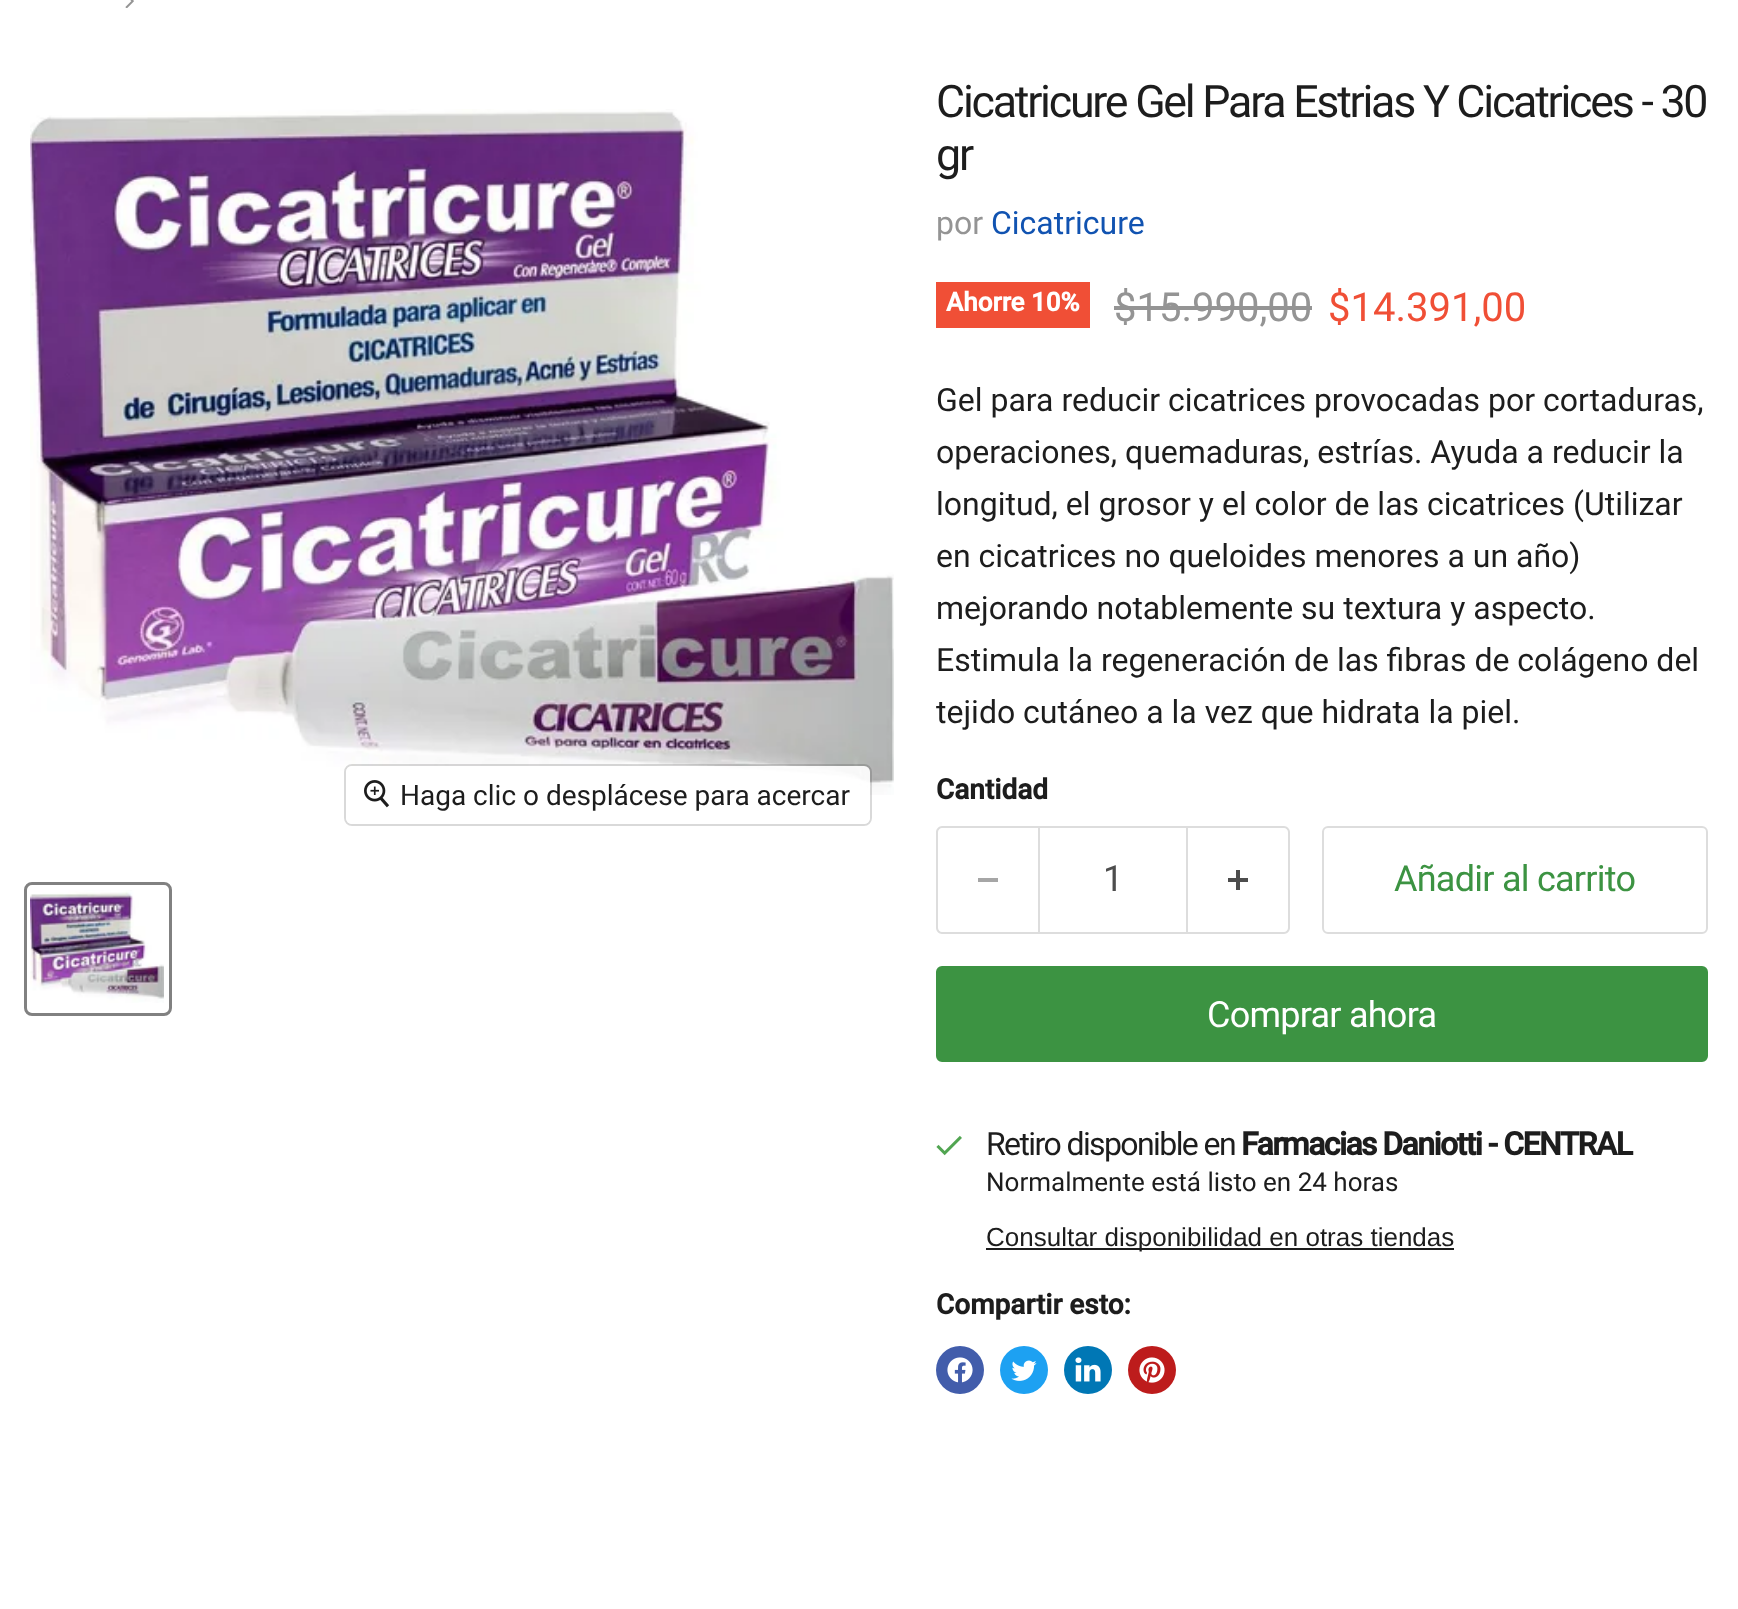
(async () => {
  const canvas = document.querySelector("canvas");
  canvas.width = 1738;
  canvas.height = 1609;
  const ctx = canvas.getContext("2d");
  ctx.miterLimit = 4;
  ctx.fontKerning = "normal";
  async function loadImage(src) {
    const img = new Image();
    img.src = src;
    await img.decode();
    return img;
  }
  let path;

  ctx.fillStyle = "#ffffff";
  ctx.fillRect(0, 0, 1738, 1609);
  ctx.drawImage(await loadImage("img/1.png"), 125, 0, 9, 8);
  ctx.drawImage(await loadImage("img/2.png"), 30, 109, 864, 686);
  ctx.beginPath();
  ctx.roundRect(345, 765, 526, 60, 7);
  ctx.strokeStyle = "rgba(0, 0, 0, 0.15)";
  ctx.lineWidth = 2;
  ctx.stroke();
  ctx.fillStyle = "rgba(255, 255, 255, 0.9)";
  ctx.beginPath();
  ctx.roundRect(346, 766, 524, 58, 6);
  ctx.fill();
  ctx.drawImage(await loadImage("img/3.png"), 364, 780, 26, 28);
  ctx.beginPath();
  ctx.roundRect(25.5, 883.5, 145, 131, 6.5);
  ctx.strokeStyle = "#818181";
  ctx.lineWidth = 3;
  ctx.stroke();
  ctx.drawImage(await loadImage("img/4.png"), 30, 890, 134, 113);
  ctx.fillStyle = "#f04f36";
  ctx.fillRect(936, 282, 154, 46);
  ctx.fillStyle = "#949494";
  ctx.fillRect(1114, 306, 198, 4);
  ctx.fillStyle = "#dddddd";
  path = new Path2D("M942 826H1038V934H942C939 934 936 931 936 928V832C936 829 939 826 942 826ZM942 828H1038V932H942C940 932 938 930 938 928V832C938 830 940 828 942 828Z");
  ctx.fill(path, "evenodd");
  ctx.fillStyle = "#a6a6a6";
  ctx.fillRect(978, 878, 20, 4);
  ctx.strokeStyle = "#dddddd";
  ctx.lineWidth = 2;
  ctx.strokeRect(1039, 827, 148, 106);
  ctx.fillStyle = "#dddddd";
  path = new Path2D("M1188 826H1284C1287 826 1290 829 1290 832V928C1290 931 1287 934 1284 934H1188ZM1188 828H1284C1286 828 1288 830 1288 832V928C1288 930 1286 932 1284 932H1188Z");
  ctx.fill(path, "evenodd");
  ctx.drawImage(await loadImage("img/5.png"), 1228, 870, 20, 20);
  ctx.beginPath();
  ctx.roundRect(1323, 827, 384, 106, 5);
  ctx.stroke();
  ctx.fillStyle = "#3c9342";
  ctx.beginPath();
  ctx.roundRect(937, 967, 770, 94, 5);
  ctx.fill();
  ctx.strokeStyle = "#3c9342";
  ctx.stroke();
  ctx.drawImage(await loadImage("img/6.png"), 936, 1135, 26, 21);
  ctx.fillStyle = "#1d1d1d";
  ctx.fillRect(986, 1248, 468, 2);
  ctx.fillStyle = "#425dab";
  ctx.beginPath();
  ctx.arc(960, 1370, 24, 0, Math.PI * 2);
  ctx.fill();
  ctx.drawImage(await loadImage("img/7.png"), 947, 1357, 26, 26);
  ctx.fillStyle = "#1da1f2";
  ctx.beginPath();
  ctx.arc(1024, 1370, 24, 0, Math.PI * 2);
  ctx.fill();
  ctx.drawImage(await loadImage("img/8.png"), 1011, 1360, 26, 21);
  ctx.fillStyle = "#0077b5";
  ctx.beginPath();
  ctx.arc(1088, 1370, 24, 0, Math.PI * 2);
  ctx.fill();
  ctx.drawImage(await loadImage("img/9.png"), 1075, 1357, 26, 25);
  ctx.fillStyle = "#bd1c1c";
  ctx.beginPath();
  ctx.arc(1152, 1370, 24, 0, Math.PI * 2);
  ctx.fill();
  ctx.drawImage(await loadImage("img/10.png"), 1139, 1357, 26, 26);
  ctx.font = "28px Roboto";
  ctx.fillStyle = "#1d1d1d";
  ctx.fillText("Haga clic o desplácese para acercar", 400, 805);
  ctx.letterSpacing = "-2.25px";
  ctx.font = "44.75px Roboto";
  ctx.fillText("Cicatricure Gel Para Estrias Y Cicatrices - 30", 936, 117);
  ctx.fillText("gr", 936, 170);
  ctx.letterSpacing = "0px";
  ctx.font = "32px Roboto";
  ctx.fillStyle = "#949494";
  ctx.fillText("por", 936, 234);
  ctx.fillStyle = "#1153b1";
  ctx.fillText("Cicatricure", 991, 234);
  ctx.font = "bold 26px Roboto";
  ctx.fillStyle = "#ffffff";
  ctx.fillText("Ahorre 10%", 946, 311);
  ctx.font = "40px Roboto";
  ctx.fillStyle = "#949494";
  ctx.fillText("$15.990,00", 1114, 321);
  ctx.fillStyle = "#f04f36";
  ctx.fillText("$14.391,00", 1328, 321);
  ctx.font = "32px Roboto";
  ctx.fillStyle = "#1d1d1d";
  for (const [text, x, y] of [
    ["Gel para reducir cicatrices provocadas por cortaduras,", 936, 411],
    ["operaciones, quemaduras, estrías. Ayuda a reducir la", 936, 463],
    ["longitud, el grosor y el color de las cicatrices (Utilizar", 936, 515],
    ["en cicatrices no queloides menores a un año)", 936, 567],
    ["mejorando notablemente su textura y aspecto.", 936, 619],
    ["Estimula la regeneración de las fibras de colágeno del", 936, 671],
    ["tejido cutáneo a la vez que hidrata la piel.", 936, 723],
  ]) {
    ctx.fillText(text, x, y);
  }
  ctx.font = "bold 28px Roboto";
  ctx.fillText("Cantidad", 936, 799);
  ctx.font = "36px Roboto";
  ctx.fillStyle = "#4d4d4d";
  ctx.fillText("1", 1103, 891);
  ctx.letterSpacing = "-0.75px";
  ctx.fillStyle = "#3c9342";
  ctx.fillText("Añadir al carrito", 1394, 891);
  ctx.fillStyle = "#ffffff";
  ctx.fillText("Comprar ahora", 1207, 1027);
  ctx.letterSpacing = "-1.6px";
  ctx.font = "32px Roboto";
  ctx.fillStyle = "#1d1d1d";
  ctx.fillText("Retiro disponible en", 986, 1155);
  ctx.font = "bold 32px Roboto";
  ctx.fillText("Farmacias Daniotti - CENTRAL", 1241, 1155);
  ctx.letterSpacing = "0px";
  ctx.font = "26px Roboto";
  ctx.fillText("Normalmente está listo en 24 horas", 986, 1191);
  ctx.font = "26px Liberation Sans";
  ctx.fillText("Consultar disponibilidad en otras tiendas", 986, 1246);
  ctx.font = "bold 28px Roboto";
  ctx.fillText("Compartir esto:", 936, 1314);
})();
